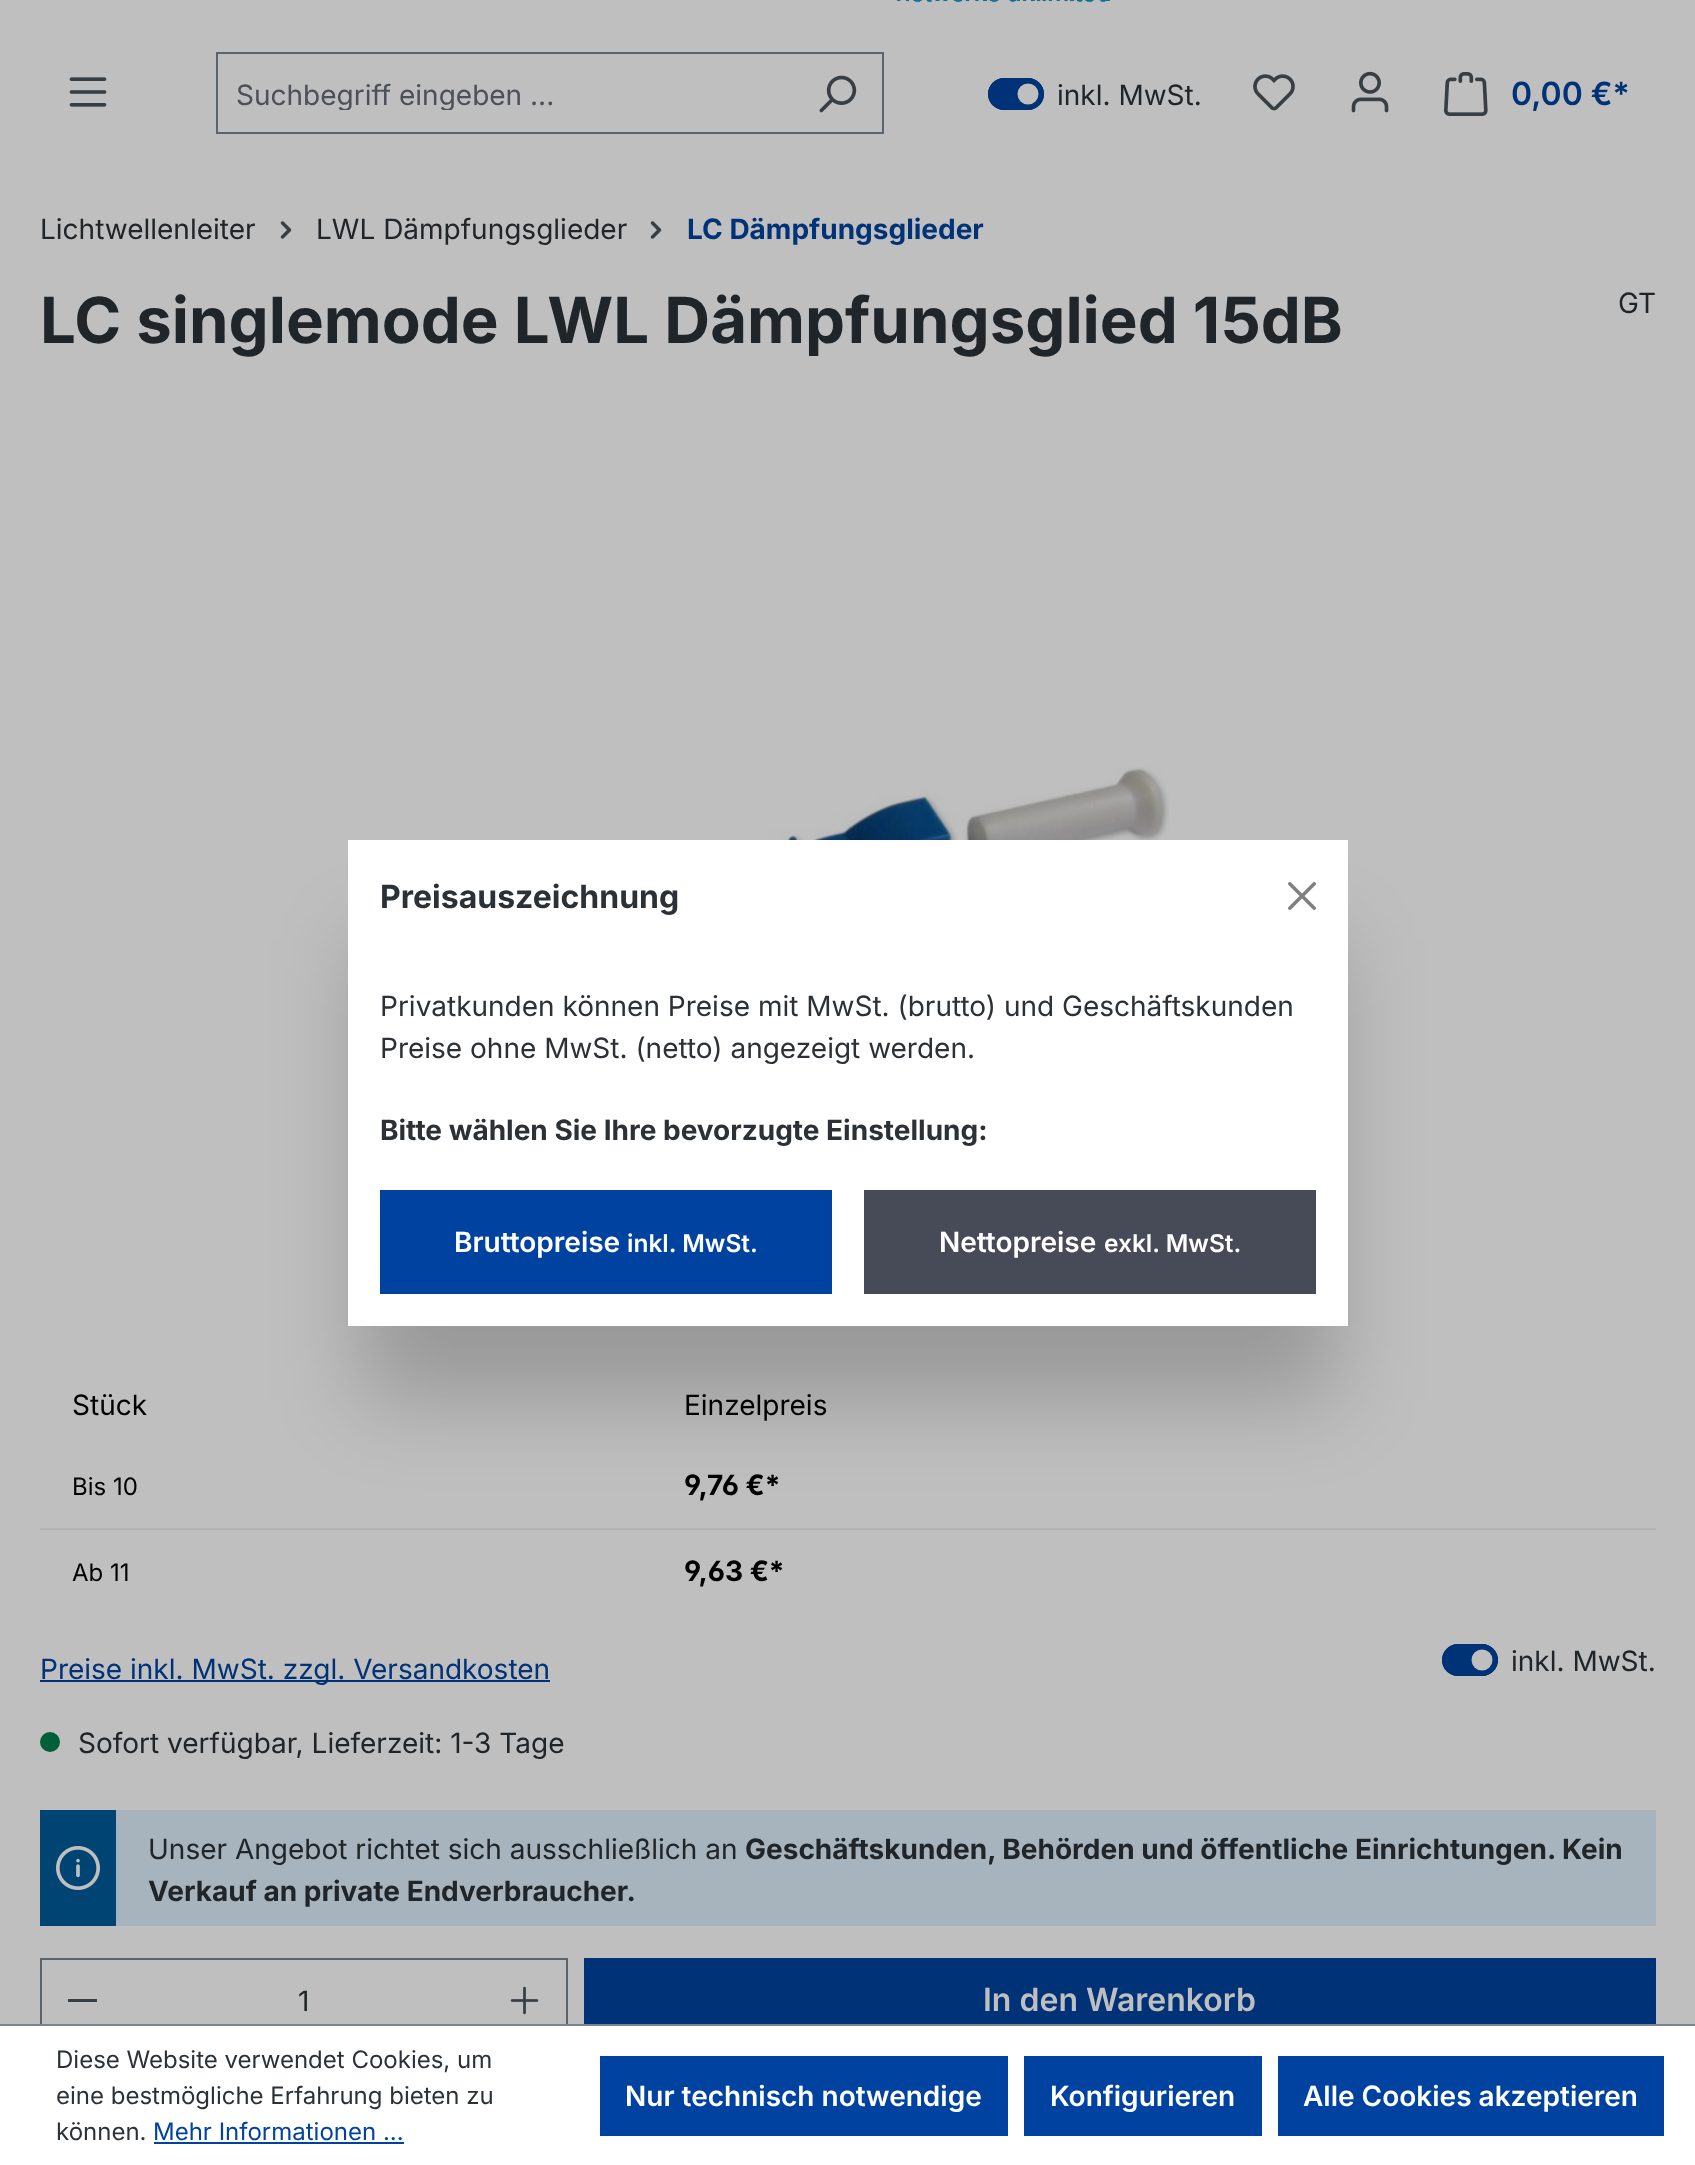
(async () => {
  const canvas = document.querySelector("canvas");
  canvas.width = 1695;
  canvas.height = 2165;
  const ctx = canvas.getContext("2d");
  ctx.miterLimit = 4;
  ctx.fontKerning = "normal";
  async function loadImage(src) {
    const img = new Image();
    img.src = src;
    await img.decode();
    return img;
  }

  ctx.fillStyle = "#bfbfbf";
  ctx.fillRect(0, 0, 1695, 2165);
  ctx.drawImage(await loadImage("img/1.png"), 896, 0, 215, 3);
  ctx.drawImage(await loadImage("img/2.png"), 69, 77, 38, 30);
  for (const [x, y, w, h, color] of [
    [216, 52, 668, 2, "#5b636c"],
    [216, 132, 576, 2, "#5b636c"],
    [216, 52, 2, 82, "#5b636c"],
    [882, 52, 2, 82, "#5b636c"],
    [790, 132, 94, 2, "#5b636c"],
  ]) {
    ctx.fillStyle = color;
    ctx.fillRect(x, y, w, h);
  }
  ctx.drawImage(await loadImage("img/3.png"), 819, 75, 38, 38);
  ctx.fillStyle = "#003278";
  ctx.beginPath();
  ctx.roundRect(988, 78, 56, 32, 16);
  ctx.fill();
  ctx.fillStyle = "#bfbfbf";
  ctx.beginPath();
  ctx.arc(1028, 94, 10.5, 0, Math.PI * 2);
  ctx.fill();
  ctx.beginPath();
  ctx.roundRect(989, 79, 54, 30, 15);
  ctx.strokeStyle = "#003278";
  ctx.lineWidth = 2;
  ctx.stroke();
  ctx.drawImage(await loadImage("img/4.png"), 1253, 74, 42, 37);
  ctx.drawImage(await loadImage("img/5.png"), 1351, 71, 38, 42);
  ctx.drawImage(await loadImage("img/6.png"), 1444, 72, 44, 44);
  ctx.drawImage(await loadImage("img/7.png"), 280, 221, 12, 18);
  ctx.drawImage(await loadImage("img/7.png"), 650, 221, 12, 18);
  ctx.drawImage(await loadImage("img/8.png"), 534, 767, 635, 73);
  ctx.fillStyle = "#b3b3b3";
  ctx.fillRect(40, 1528, 1616, 2);
  ctx.fillStyle = "#003278";
  ctx.fillRect(40, 1680, 510, 2);
  ctx.beginPath();
  ctx.roundRect(1442, 1644, 56, 32, 16);
  ctx.fill();
  ctx.fillStyle = "#bfbfbf";
  ctx.beginPath();
  ctx.arc(1482, 1660, 10.5, 0, Math.PI * 2);
  ctx.fill();
  ctx.beginPath();
  ctx.roundRect(1443, 1645, 54, 30, 15);
  ctx.stroke();
  ctx.fillStyle = "#005f3b";
  ctx.beginPath();
  ctx.arc(50, 1742, 10, 0, Math.PI * 2);
  ctx.fill();
  ctx.fillStyle = "#004473";
  ctx.fillRect(40, 1810, 76, 116);
  ctx.drawImage(await loadImage("img/9.png"), 56, 1846, 44, 44);
  for (const [x, y, w, h, color] of [
    [116, 1810, 1540, 116, "#a7b4bd"],
    [40, 1958, 528, 2, "#5b636c"],
    [40, 1958, 2, 66, "#5b636c"],
    [68, 1999, 29, 3, "#383f44"],
    [566, 1958, 2, 66, "#5b636c"],
  ]) {
    ctx.fillStyle = color;
    ctx.fillRect(x, y, w, h);
  }
  ctx.drawImage(await loadImage("img/10.png"), 510, 1986, 29, 29);
  ctx.fillStyle = "#003278";
  ctx.fillRect(584, 1958, 1072, 66);
  ctx.fillStyle = "rgba(0, 0, 0, 0.2)";
  ctx.filter = "blur(43px)";
  ctx.beginPath();
  ctx.rect(360, 938, 976, 462);
  ctx.fill();
  ctx.filter = "none";
  ctx.fillStyle = "#ffffff";
  ctx.fillRect(348, 840, 1000, 486);
  ctx.drawImage(await loadImage("img/11.png"), 1288, 882, 28, 28);
  for (const [x, y, w, h, color] of [
    [380, 1190, 452, 104, "#0042a0"],
    [864, 1190, 452, 104, "#474a57"],
    [0, 2026, 1695, 139, "#ffffff"],
    [0, 2024, 1695, 2, "#798490"],
    [154, 2142, 250, 2, "#0042a0"],
    [600, 2056, 408, 80, "#0042a0"],
    [1024, 2056, 238, 80, "#0042a0"],
    [1278, 2056, 386, 80, "#0042a0"],
  ]) {
    ctx.fillStyle = color;
    ctx.fillRect(x, y, w, h);
  }
  ctx.save();
  ctx.beginPath();
  ctx.rect(236, 76, 538, 34);
  ctx.clip();
  ctx.font = "28px Inter";
  ctx.fillStyle = "#4d4f59";
  ctx.fillText("Suchbegriff eingeben ...", 236, 105);
  ctx.restore();
  ctx.font = "28px Inter";
  ctx.fillStyle = "#202529";
  ctx.fillText("inkl. MwSt.", 1057, 105);
  ctx.font = "600 32px Inter";
  ctx.fillStyle = "#003278";
  ctx.fillText("0,00 €*", 1511, 105);
  ctx.font = "28px Inter";
  ctx.fillStyle = "#202529";
  ctx.fillText("Lichtwellenleiter", 40, 239);
  ctx.fillText("LWL Dämpfungsglieder", 316, 239);
  ctx.font = "bold 28px Inter";
  ctx.fillStyle = "#003278";
  ctx.fillText("LC Dämpfungsglieder", 687, 239);
  ctx.font = "bold 63.55px Inter";
  ctx.fillStyle = "#202529";
  ctx.fillText("LC singlemode LWL Dämpfungsglied 15dB", 40, 343);
  ctx.font = "28px Inter";
  ctx.fillText("GT", 1618, 313);
  ctx.fillStyle = "#000000";
  ctx.fillText("Stück", 72, 1415);
  ctx.fillText("Einzelpreis", 684, 1415);
  ctx.font = "24px Inter";
  ctx.fillText("Bis 10", 72, 1495);
  ctx.font = "bold 28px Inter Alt";
  ctx.fillText("9,76 €*", 684, 1495);
  ctx.font = "24px Inter";
  ctx.fillText("Ab 11", 72, 1581);
  ctx.font = "bold 28px Inter Alt";
  ctx.fillText("9,63 €*", 684, 1581);
  ctx.font = "28px Inter";
  ctx.fillStyle = "#003278";
  ctx.fillText("Preise inkl. MwSt. zzgl. Versandkosten", 40, 1679);
  ctx.fillStyle = "#202529";
  for (const [text, x, y] of [
    ["inkl. MwSt.", 1511, 1671],
    ["Sofort verfügbar, Lieferzeit: 1-3 Tage", 78, 1753],
    ["Unser Angebot richtet sich ausschließlich an", 148, 1859],
  ]) {
    ctx.fillText(text, x, y);
  }
  ctx.font = "bold 28px Inter";
  ctx.fillText("Geschäftskunden, Behörden und öffentliche Einrichtungen. Kein", 745, 1859);
  ctx.fillText("Verkauf an private Endverbraucher.", 148, 1901);
  ctx.font = "28px Inter";
  ctx.fillText("1", 298, 2011);
  ctx.font = "600 32px Inter";
  ctx.fillStyle = "#bfbfbf";
  ctx.fillText("In den Warenkorb", 983, 2011);
  ctx.font = "bold 32px Inter";
  ctx.fillStyle = "#2b3136";
  ctx.fillText("Preisauszeichnung", 380, 908);
  ctx.font = "28px Inter";
  ctx.fillText("Privatkunden können Preise mit MwSt. (brutto) und Geschäftskunden", 380, 1016);
  ctx.fillText("Preise ohne MwSt. (netto) angezeigt werden.", 380, 1058);
  ctx.font = "bold 28px Inter";
  ctx.fillText("Bitte wählen Sie Ihre bevorzugte Einstellung:", 380, 1140);
  ctx.font = "600 28px Inter";
  ctx.fillStyle = "#ffffff";
  ctx.fillText("Bruttopreise", 454, 1252);
  ctx.font = "600 24.5px Inter";
  ctx.fillText("inkl. MwSt.", 627, 1252);
  ctx.font = "600 28px Inter";
  ctx.fillText("Nettopreise", 939, 1252);
  ctx.font = "600 24.5px Inter";
  ctx.fillText("exkl. MwSt.", 1104, 1252);
  ctx.font = "24px Inter";
  ctx.fillStyle = "#2b3136";
  for (const [text, x, y] of [
    ["Diese Website verwendet Cookies, um", 56, 2068],
    ["eine bestmögliche Erfahrung bieten zu", 56, 2104],
    ["können.", 56, 2140],
  ]) {
    ctx.fillText(text, x, y);
  }
  ctx.fillStyle = "#0042a0";
  ctx.fillText("Mehr Informationen ...", 153, 2140);
  ctx.font = "600 28px Inter";
  ctx.fillStyle = "#ffffff";
  for (const [text, x, y] of [
    ["Nur technisch notwendige", 625, 2106],
    ["Konfigurieren", 1050, 2106],
    ["Alle Cookies akzeptieren", 1303, 2106],
  ]) {
    ctx.fillText(text, x, y);
  }
})();
